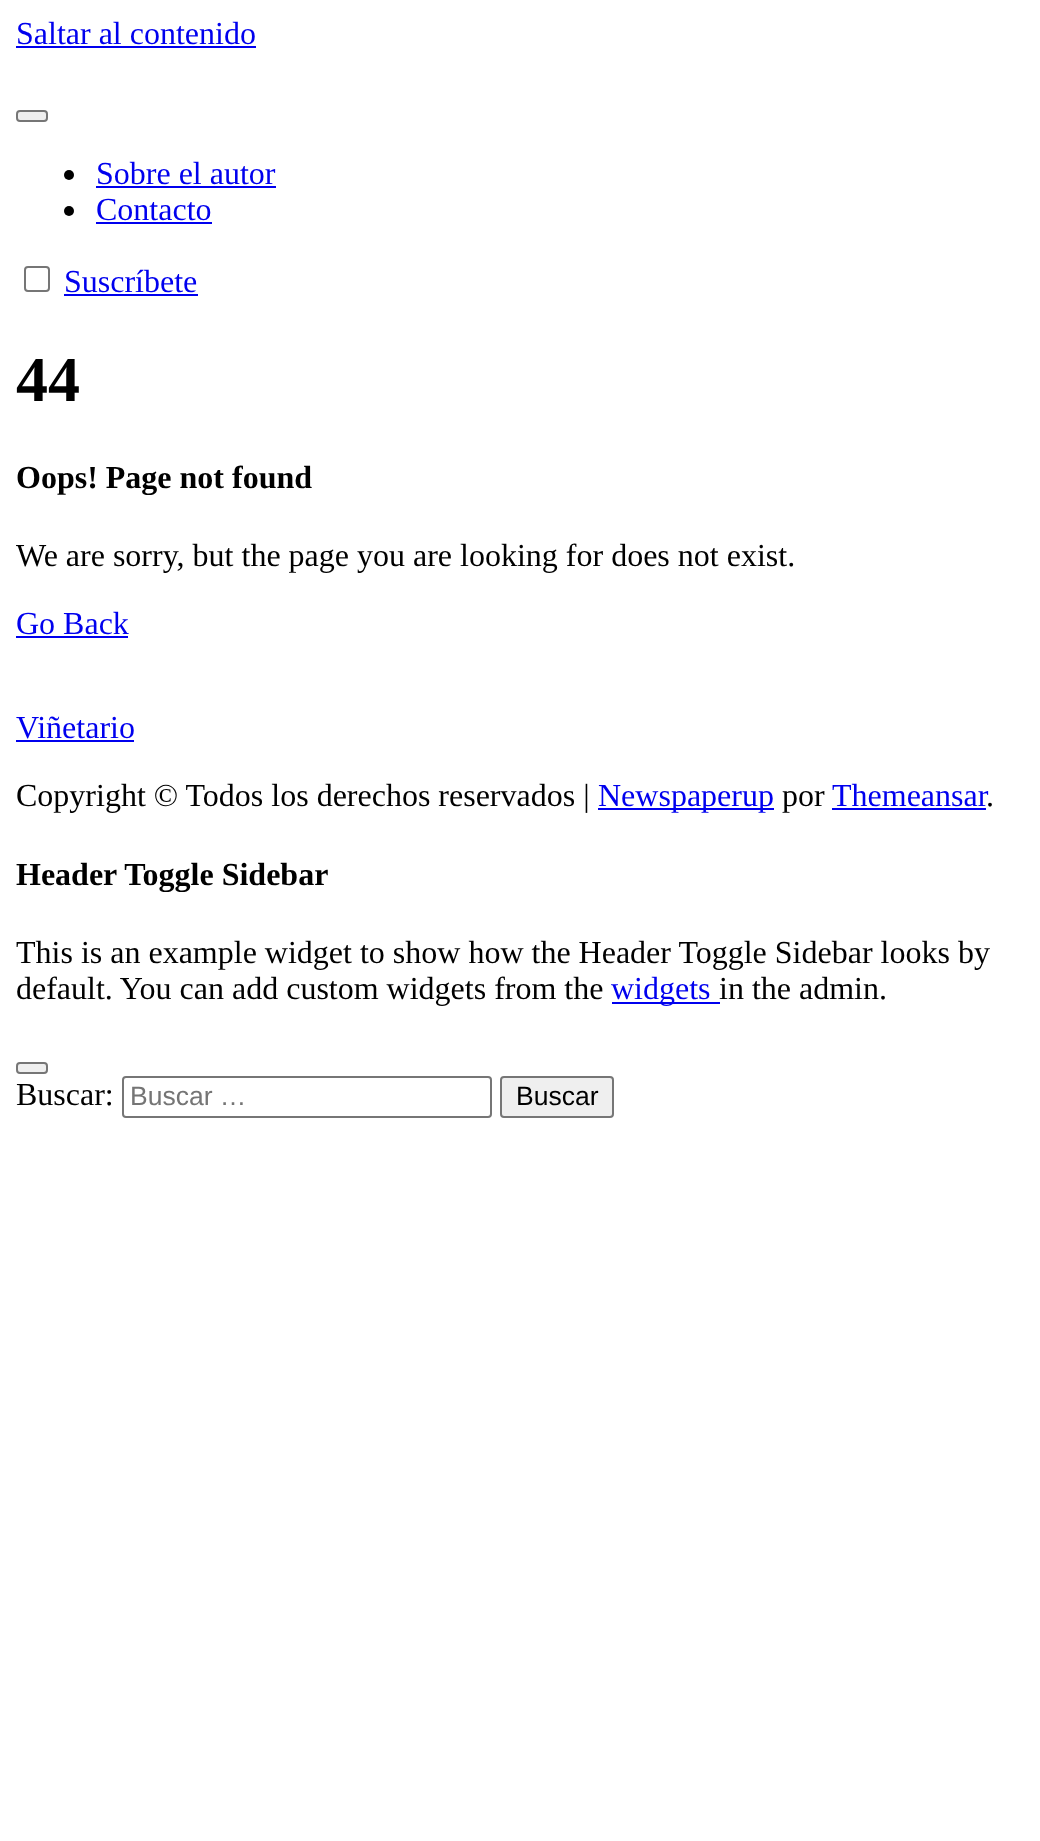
(async () => {
  const canvas = document.querySelector("canvas");
  canvas.width = 1040;
  canvas.height = 1841;
  const ctx = canvas.getContext("2d");
  ctx.miterLimit = 4;
  ctx.fontKerning = "normal";

  ctx.fillStyle = "#ffffff";
  ctx.fillRect(0, 0, 1040, 1841);
  ctx.fillStyle = "#0000ee";
  ctx.fillRect(16, 46, 240, 2);
  ctx.fillStyle = "#efefef";
  ctx.beginPath();
  ctx.roundRect(17, 111, 30, 10, 3);
  ctx.fill();
  ctx.strokeStyle = "#767676";
  ctx.lineWidth = 2;
  ctx.stroke();
  ctx.fillStyle = "#000000";
  ctx.beginPath();
  ctx.arc(69, 175, 5, 0, Math.PI * 2);
  ctx.fill();
  ctx.fillStyle = "#0000ee";
  ctx.fillRect(96, 186, 180, 2);
  ctx.fillStyle = "#000000";
  ctx.beginPath();
  ctx.arc(69, 211, 5, 0, Math.PI * 2);
  ctx.fill();
  ctx.fillStyle = "#0000ee";
  ctx.fillRect(96, 222, 116, 2);
  ctx.beginPath();
  ctx.roundRect(25, 267, 24, 24, 3);
  ctx.stroke();
  for (const [x, y, w, h, color] of [
    [64, 294, 134, 2, "#0000ee"],
    [16, 636, 112, 2, "#0000ee"],
    [16, 740, 118, 2, "#0000ee"],
    [598, 808, 176, 2, "#0000ee"],
    [832, 808, 154, 2, "#0000ee"],
    [612, 1002, 108, 2, "#0000ee"],
  ]) {
    ctx.fillStyle = color;
    ctx.fillRect(x, y, w, h);
  }
  ctx.fillStyle = "#efefef";
  ctx.beginPath();
  ctx.roundRect(17, 1063, 30, 10, 3);
  ctx.fill();
  ctx.stroke();
  ctx.beginPath();
  ctx.roundRect(123, 1077, 368, 40, 3);
  ctx.stroke();
  ctx.beginPath();
  ctx.roundRect(501, 1077, 112, 40, 3);
  ctx.fill();
  ctx.stroke();
  ctx.font = "32px Liberation Serif";
  ctx.fillStyle = "#0000ee";
  for (const [text, x, y] of [
    ["Saltar al contenido", 16, 44],
    ["Sobre el autor", 96, 184],
    ["Contacto", 96, 220],
    ["Suscríbete", 64, 292],
  ]) {
    ctx.fillText(text, x, y);
  }
  ctx.font = "bold 64px Liberation Serif";
  ctx.fillStyle = "#000000";
  ctx.fillText("44", 16, 401);
  ctx.font = "bold 32px Liberation Serif";
  ctx.fillText("Oops! Page not found", 16, 488);
  ctx.font = "32px Liberation Serif";
  ctx.fillText("We are sorry, but the page you are looking for does not exist.", 16, 566);
  ctx.fillStyle = "#0000ee";
  ctx.fillText("Go Back", 16, 634);
  ctx.fillText("Viñetario", 16, 738);
  ctx.fillStyle = "#000000";
  ctx.fillText("Copyright © Todos los derechos reservados |", 16, 806);
  ctx.fillStyle = "#0000ee";
  ctx.fillText("Newspaperup", 598, 806);
  ctx.fillStyle = "#000000";
  ctx.fillText("por", 782, 806);
  ctx.fillStyle = "#0000ee";
  ctx.fillText("Themeansar", 832, 806);
  ctx.fillStyle = "#000000";
  ctx.fillText(".", 986, 806);
  ctx.font = "bold 32px Liberation Serif";
  ctx.fillText("Header Toggle Sidebar", 16, 885);
  ctx.font = "32px Liberation Serif";
  ctx.fillText("This is an example widget to show how the Header Toggle Sidebar looks by", 16, 963);
  ctx.fillText("default. You can add custom widgets from the", 16, 999);
  ctx.fillStyle = "#0000ee";
  ctx.fillText("widgets", 611, 999);
  ctx.fillStyle = "#000000";
  ctx.fillText("in the admin.", 719, 999);
  ctx.fillText("Buscar:", 16, 1105);
  ctx.font = "26.5px Liberation Sans";
  ctx.fillStyle = "#757575";
  ctx.fillText("Buscar …", 130, 1105);
  ctx.fillStyle = "#000000";
  ctx.fillText("Buscar", 516, 1105);
})();
